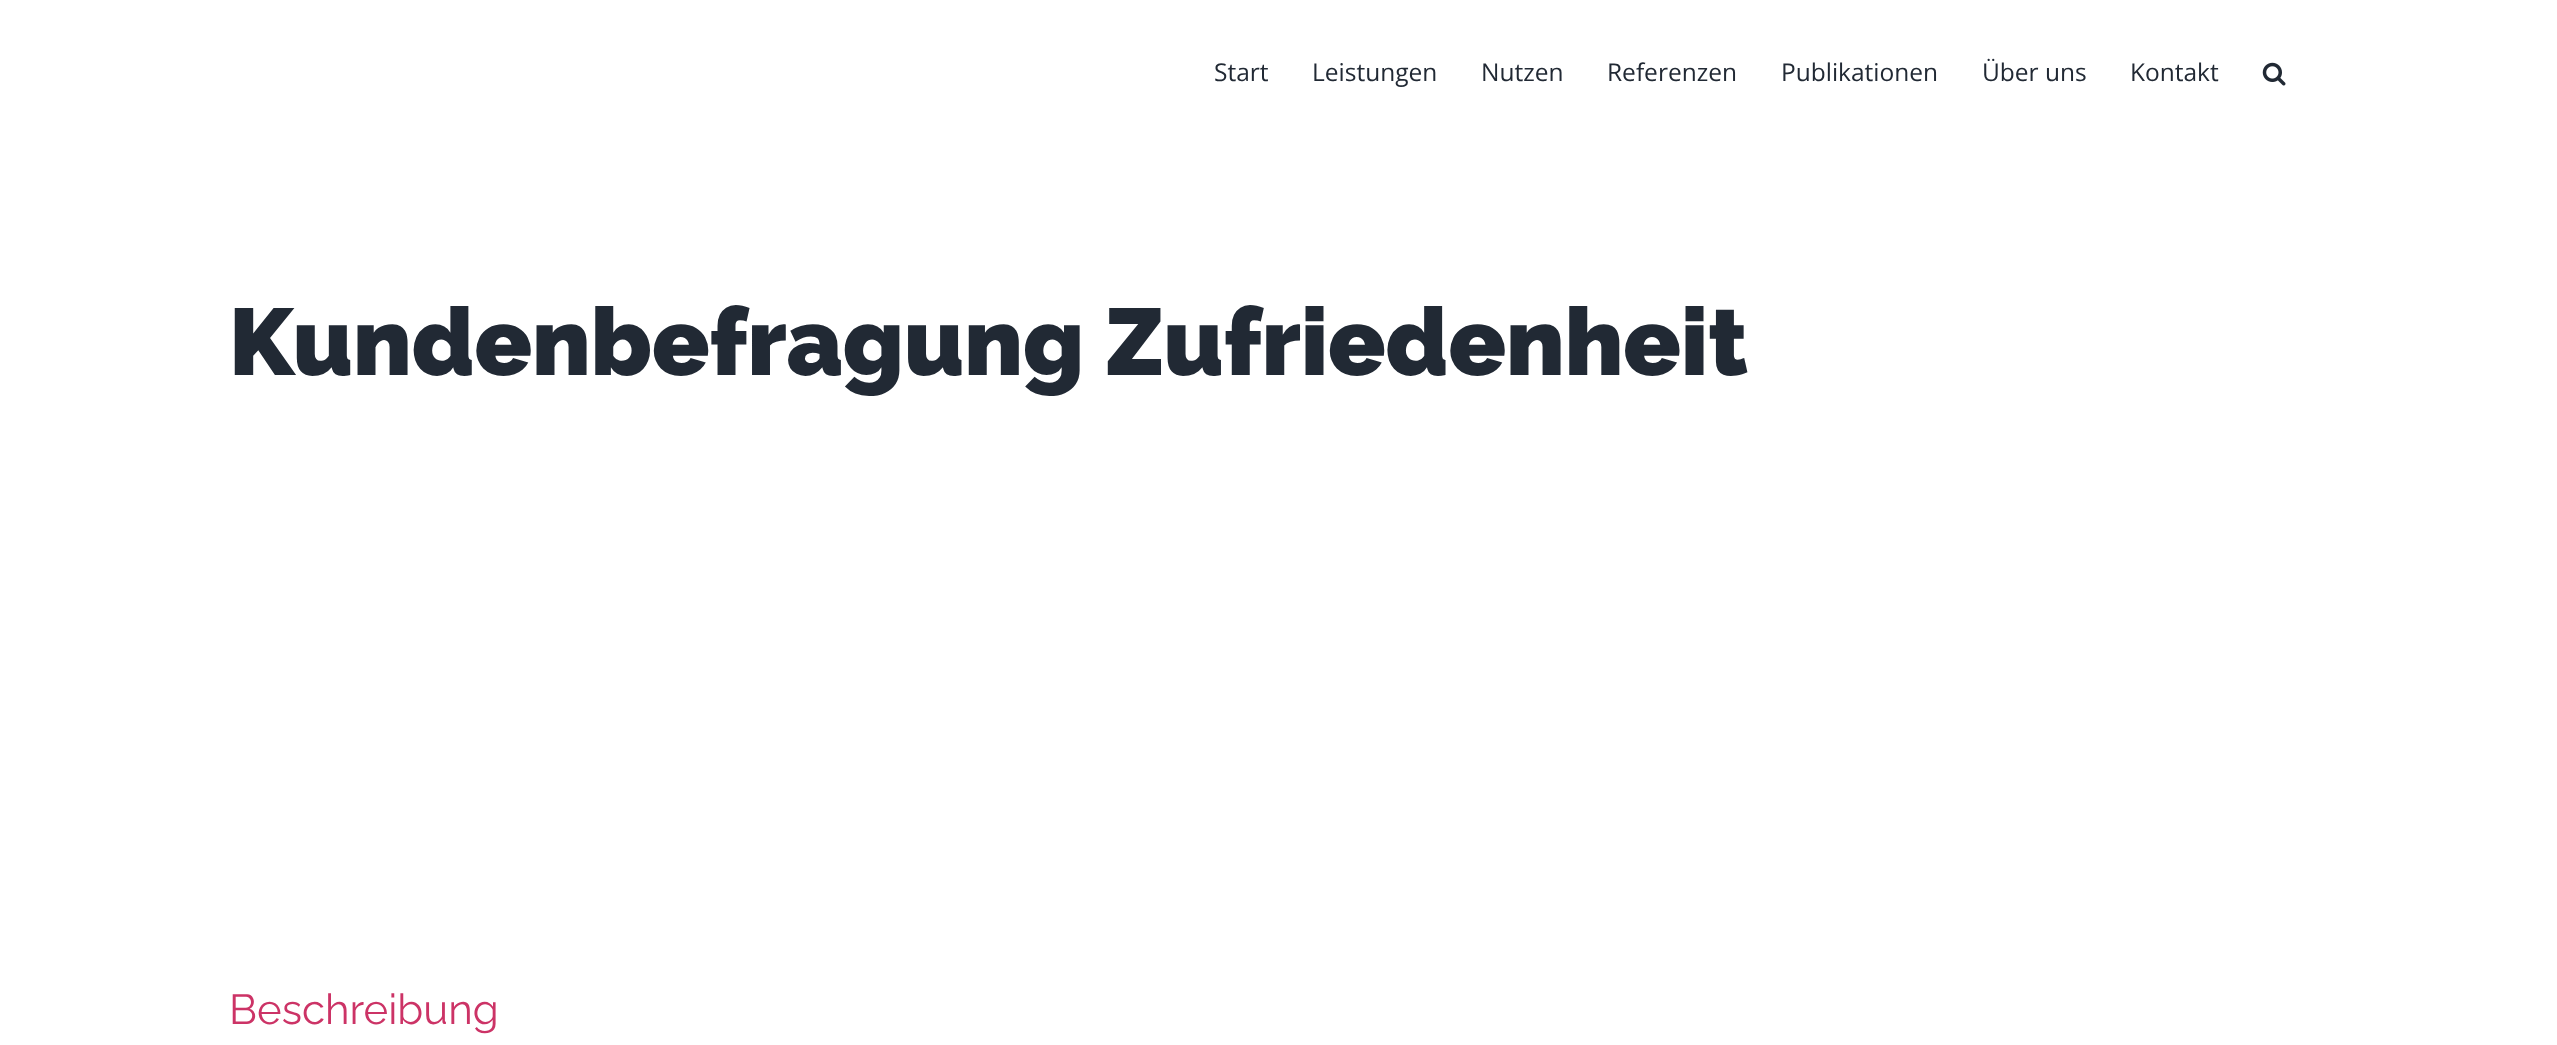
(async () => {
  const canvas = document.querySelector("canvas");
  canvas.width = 2557;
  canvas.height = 1045;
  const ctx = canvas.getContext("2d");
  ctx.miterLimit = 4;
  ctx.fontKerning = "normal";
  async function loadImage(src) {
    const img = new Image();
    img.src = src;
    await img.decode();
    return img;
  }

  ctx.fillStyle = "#ffffff";
  ctx.fillRect(0, 0, 2557, 1045);
  ctx.drawImage(await loadImage("img/1.png"), 2262, 62, 24, 24);
  ctx.font = "24.5px Open Sans";
  ctx.fillStyle = "#212934";
  for (const [text, x, y] of [
    ["Start", 1214, 81],
    ["Leistungen", 1312, 81],
    ["Nutzen", 1481, 81],
    ["Referenzen", 1607, 81],
    ["Publikationen", 1781, 81],
    ["Über uns", 1982, 81],
    ["Kontakt", 2130, 81],
  ]) {
    ctx.fillText(text, x, y);
  }
  ctx.font = "900 94.5px Raleway";
  ctx.fillText("Kundenbefragung Zufriedenheit", 229, 375);
  ctx.font = "42px Raleway";
  ctx.fillStyle = "#cc3366";
  ctx.fillText("Beschreibung", 229, 1024);
})();
